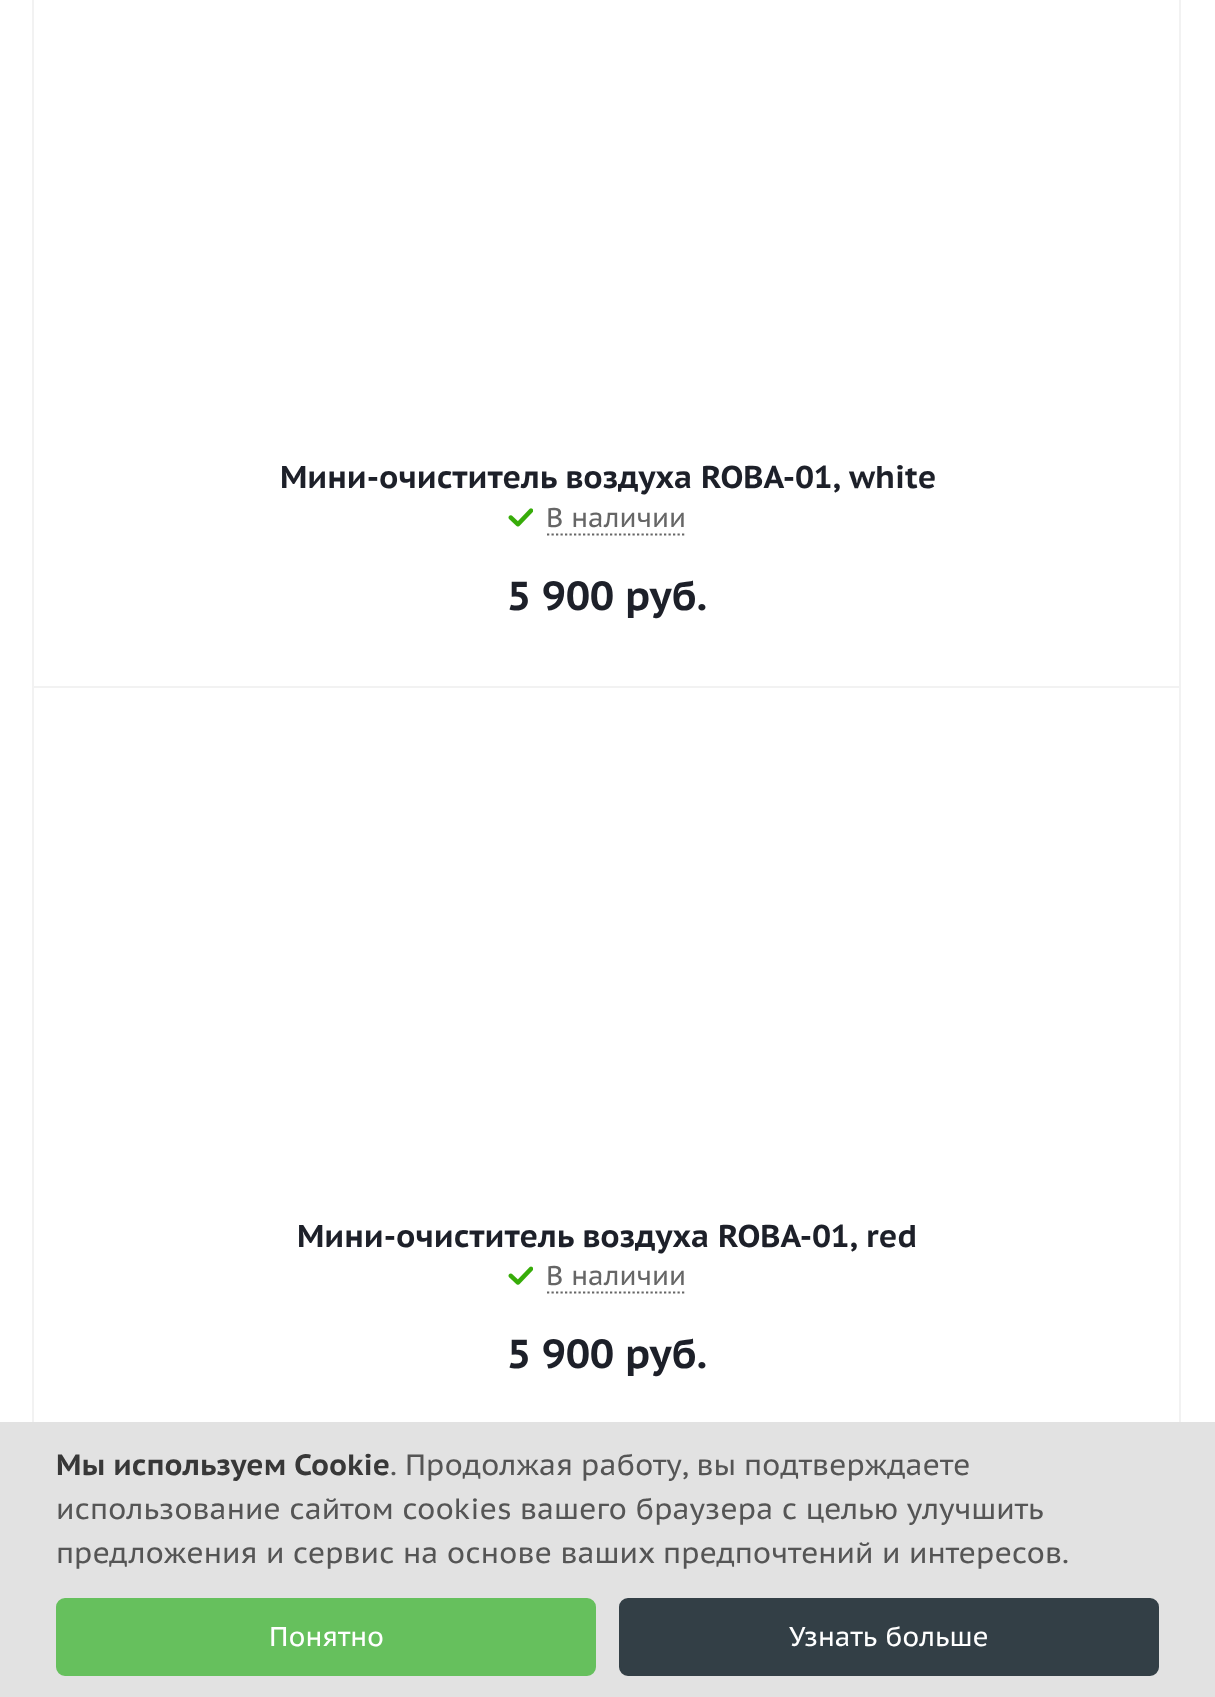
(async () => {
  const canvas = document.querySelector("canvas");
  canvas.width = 1215;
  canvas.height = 1697;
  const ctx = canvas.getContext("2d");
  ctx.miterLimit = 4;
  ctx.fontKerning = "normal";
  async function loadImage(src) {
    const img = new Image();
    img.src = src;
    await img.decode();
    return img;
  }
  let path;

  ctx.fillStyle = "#ffffff";
  ctx.fillRect(0, 0, 1215, 1697);
  ctx.strokeStyle = "#f2f2f2";
  ctx.lineWidth = 2;
  ctx.strokeRect(33, -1, 1147, 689);
  ctx.drawImage(await loadImage("img/1.png"), 508, 508, 25, 19);
  path = new Path2D("M547 534.5H686");
  ctx.strokeStyle = "#666666";
  ctx.lineWidth = 2.2;
  ctx.setLineDash([2.25, 2.25]);
  ctx.stroke(path);
  ctx.fillRect(34, 688, 1145, 1);
  ctx.strokeStyle = "#f2f2f2";
  ctx.lineWidth = 2;
  ctx.setLineDash([]);
  ctx.strokeRect(33, 687, 1147, 759);
  ctx.drawImage(await loadImage("img/2.png"), 508, 1266, 25, 19);
  path = new Path2D("M547 1292.5H686");
  ctx.strokeStyle = "#666666";
  ctx.lineWidth = 2.2;
  ctx.setLineDash([2.25, 2.25]);
  ctx.stroke(path);
  ctx.fillStyle = "#e2e2e2";
  ctx.fillRect(0, 1422, 1215, 275);
  ctx.fillStyle = "#66c05d";
  ctx.beginPath();
  ctx.roundRect(57, 1599, 538, 76, 8);
  ctx.fill();
  ctx.strokeStyle = "#66c05d";
  ctx.lineWidth = 2;
  ctx.setLineDash([]);
  ctx.stroke();
  ctx.fillStyle = "#333f46";
  ctx.beginPath();
  ctx.roundRect(620, 1599, 538, 76, 8);
  ctx.fill();
  ctx.strokeStyle = "#333f46";
  ctx.stroke();
  ctx.font = "bold 31.5px PT Sans Caption";
  ctx.fillStyle = "#1d2029";
  ctx.fillText("Мини-очиститель воздуха ROBA-01, white", 280, 488);
  ctx.font = "27px PT Sans Caption";
  ctx.fillStyle = "#666666";
  ctx.fillText("В наличии", 546, 527);
  ctx.font = "bold 40.5px PT Sans Caption";
  ctx.fillStyle = "#1d2029";
  ctx.fillText("5 900 руб.", 507, 610);
  ctx.font = "bold 31.5px PT Sans Caption";
  ctx.fillText("Мини-очиститель воздуха ROBA-01, red", 297, 1247);
  ctx.font = "27px PT Sans Caption";
  ctx.fillStyle = "#666666";
  ctx.fillText("В наличии", 546, 1285);
  ctx.font = "bold 40.5px PT Sans Caption";
  ctx.fillStyle = "#1d2029";
  ctx.fillText("5 900 руб.", 507, 1368);
  ctx.font = "bold 29.25px PT Sans Caption";
  ctx.fillStyle = "#383838";
  ctx.fillText("Мы используем Cookie", 56, 1475);
  ctx.wordSpacing = "-0.5px";
  ctx.font = "29.25px PT Sans Caption";
  ctx.fillStyle = "#555555";
  ctx.fillText(". Продолжая работу, вы подтверждаете", 390, 1475);
  ctx.wordSpacing = "0px";
  ctx.fillText("использование сайтом cookies вашего браузера с целью улучшить", 56, 1519);
  ctx.fillText("предложения и сервис на основе ваших предпочтений и интересов.", 56, 1563);
  ctx.font = "27px PT Sans Caption";
  ctx.fillStyle = "#ffffff";
  ctx.fillText("Понятно", 269, 1646);
  ctx.wordSpacing = "1px";
  ctx.fillText("Узнать больше", 789, 1646);
})();
